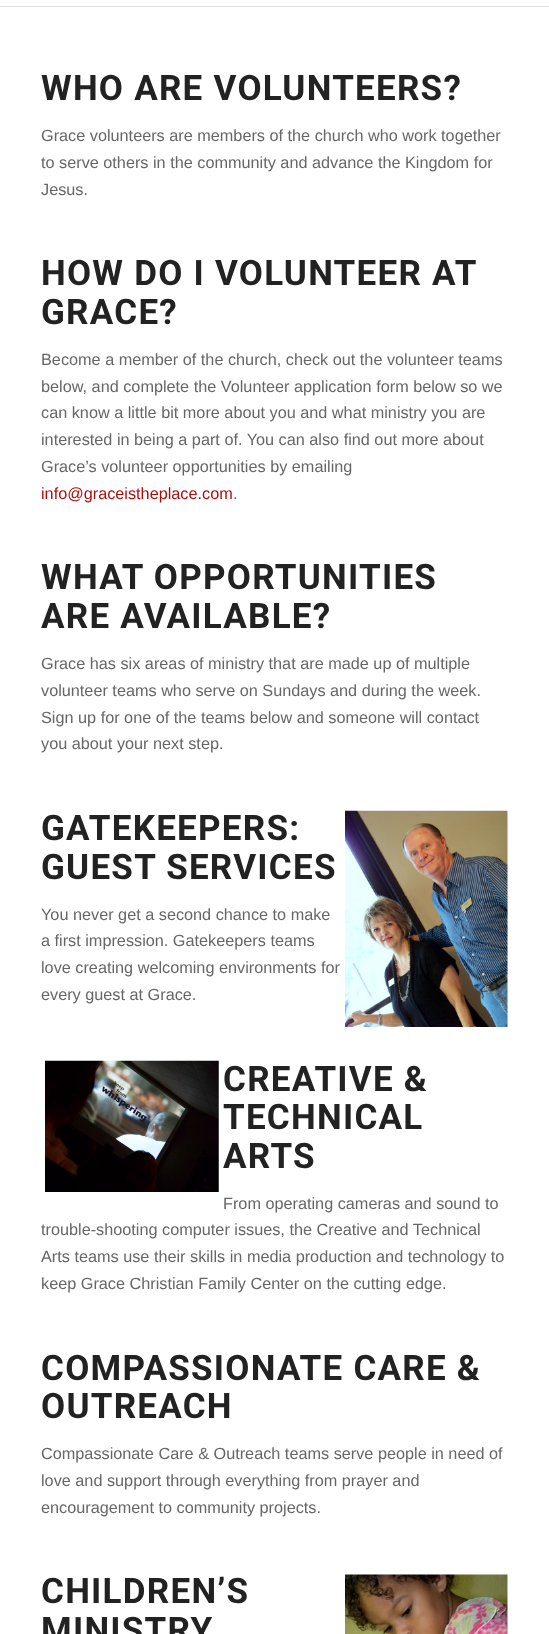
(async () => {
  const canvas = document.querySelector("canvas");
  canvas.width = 549;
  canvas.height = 1634;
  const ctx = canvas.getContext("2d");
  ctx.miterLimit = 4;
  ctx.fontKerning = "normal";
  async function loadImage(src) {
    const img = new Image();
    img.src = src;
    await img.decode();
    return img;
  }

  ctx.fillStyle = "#ffffff";
  ctx.fillRect(0, 0, 549, 1634);
  ctx.fillStyle = "#e1e1e1";
  ctx.fillRect(0, 6, 549, 1);
  ctx.drawImage(await loadImage("img/1.png"), 345, 810, 163, 217);
  ctx.drawImage(await loadImage("img/2.png"), 45, 1060, 174, 132);
  ctx.drawImage(await loadImage("img/3.png"), 345, 1574, 163, 60);
  ctx.letterSpacing = "1.25px";
  ctx.font = "bold 35px Roboto";
  ctx.fillStyle = "#222222";
  ctx.fillText("WHO ARE VOLUNTEERS?", 41, 100);
  ctx.letterSpacing = "0px";
  ctx.font = "16.25px Liberation Sans";
  ctx.fillStyle = "#666666";
  for (const [text, x, y] of [
    ["Grace volunteers are members of the church who work together", 41, 141],
    ["to serve others in the community and advance the Kingdom for", 41, 168],
    ["Jesus.", 41, 195],
  ]) {
    ctx.fillText(text, x, y);
  }
  ctx.letterSpacing = "1.25px";
  ctx.font = "bold 35px Roboto";
  ctx.fillStyle = "#222222";
  ctx.fillText("HOW DO I VOLUNTEER AT", 41, 285);
  ctx.fillText("GRACE?", 41, 324);
  ctx.letterSpacing = "0px";
  ctx.font = "16.25px Liberation Sans";
  ctx.fillStyle = "#666666";
  for (const [text, x, y] of [
    ["Become a member of the church, check out the volunteer teams", 41, 365],
    ["below, and complete the Volunteer application form below so we", 41, 392],
    ["can know a little bit more about you and what ministry you are", 41, 418],
    ["interested in being a part of. You can also find out more about", 41, 445],
    ["Grace’s volunteer opportunities by emailing", 41, 472],
  ]) {
    ctx.fillText(text, x, y);
  }
  ctx.fillStyle = "#a81010";
  ctx.fillText("info@graceistheplace.com", 41, 499);
  ctx.fillStyle = "#666666";
  ctx.fillText(".", 233, 499);
  ctx.letterSpacing = "1.25px";
  ctx.font = "bold 35px Roboto";
  ctx.fillStyle = "#222222";
  ctx.fillText("WHAT OPPORTUNITIES", 41, 589);
  ctx.fillText("ARE AVAILABLE?", 41, 628);
  ctx.letterSpacing = "0px";
  ctx.font = "16.25px Liberation Sans";
  ctx.fillStyle = "#666666";
  for (const [text, x, y] of [
    ["Grace has six areas of ministry that are made up of multiple", 41, 669],
    ["volunteer teams who serve on Sundays and during the week.", 41, 696],
    ["Sign up for one of the teams below and someone will contact", 41, 723],
    ["you about your next step.", 41, 749],
  ]) {
    ctx.fillText(text, x, y);
  }
  ctx.letterSpacing = "1.25px";
  ctx.font = "bold 35px Roboto";
  ctx.fillStyle = "#222222";
  ctx.fillText("GATEKEEPERS:", 41, 840);
  ctx.fillText("GUEST SERVICES", 41, 879);
  ctx.letterSpacing = "0px";
  ctx.font = "16.25px Liberation Sans";
  ctx.fillStyle = "#666666";
  for (const [text, x, y] of [
    ["You never get a second chance to make", 41, 920],
    ["a first impression. Gatekeepers teams", 41, 946],
    ["love creating welcoming environments for", 41, 973],
    ["every guest at Grace.", 41, 1000],
  ]) {
    ctx.fillText(text, x, y);
  }
  ctx.letterSpacing = "1.25px";
  ctx.font = "bold 35px Roboto";
  ctx.fillStyle = "#222222";
  for (const [text, x, y] of [
    ["CREATIVE &", 223, 1091],
    ["TECHNICAL", 223, 1129],
    ["ARTS", 223, 1168],
  ]) {
    ctx.fillText(text, x, y);
  }
  ctx.letterSpacing = "0px";
  ctx.font = "16.25px Liberation Sans";
  ctx.fillStyle = "#666666";
  for (const [text, x, y] of [
    ["From operating cameras and sound to", 223, 1209],
    ["trouble-shooting computer issues, the Creative and Technical", 41, 1235],
    ["Arts teams use their skills in media production and technology to", 41, 1262],
    ["keep Grace Christian Family Center on the cutting edge.", 41, 1289],
  ]) {
    ctx.fillText(text, x, y);
  }
  ctx.letterSpacing = "1.25px";
  ctx.font = "bold 35px Roboto";
  ctx.fillStyle = "#222222";
  ctx.fillText("COMPASSIONATE CARE &", 41, 1380);
  ctx.fillText("OUTREACH", 41, 1418);
  ctx.letterSpacing = "0px";
  ctx.font = "16.25px Liberation Sans";
  ctx.fillStyle = "#666666";
  for (const [text, x, y] of [
    ["Compassionate Care & Outreach teams serve people in need of", 41, 1459],
    ["love and support through everything from prayer and", 41, 1486],
    ["encouragement to community projects.", 41, 1513],
  ]) {
    ctx.fillText(text, x, y);
  }
  ctx.letterSpacing = "1.25px";
  ctx.font = "bold 35px Roboto";
  ctx.fillStyle = "#222222";
  ctx.fillText("CHILDREN’S", 41, 1603);
  ctx.fillText("MINISTRY", 41, 1642);
})();
